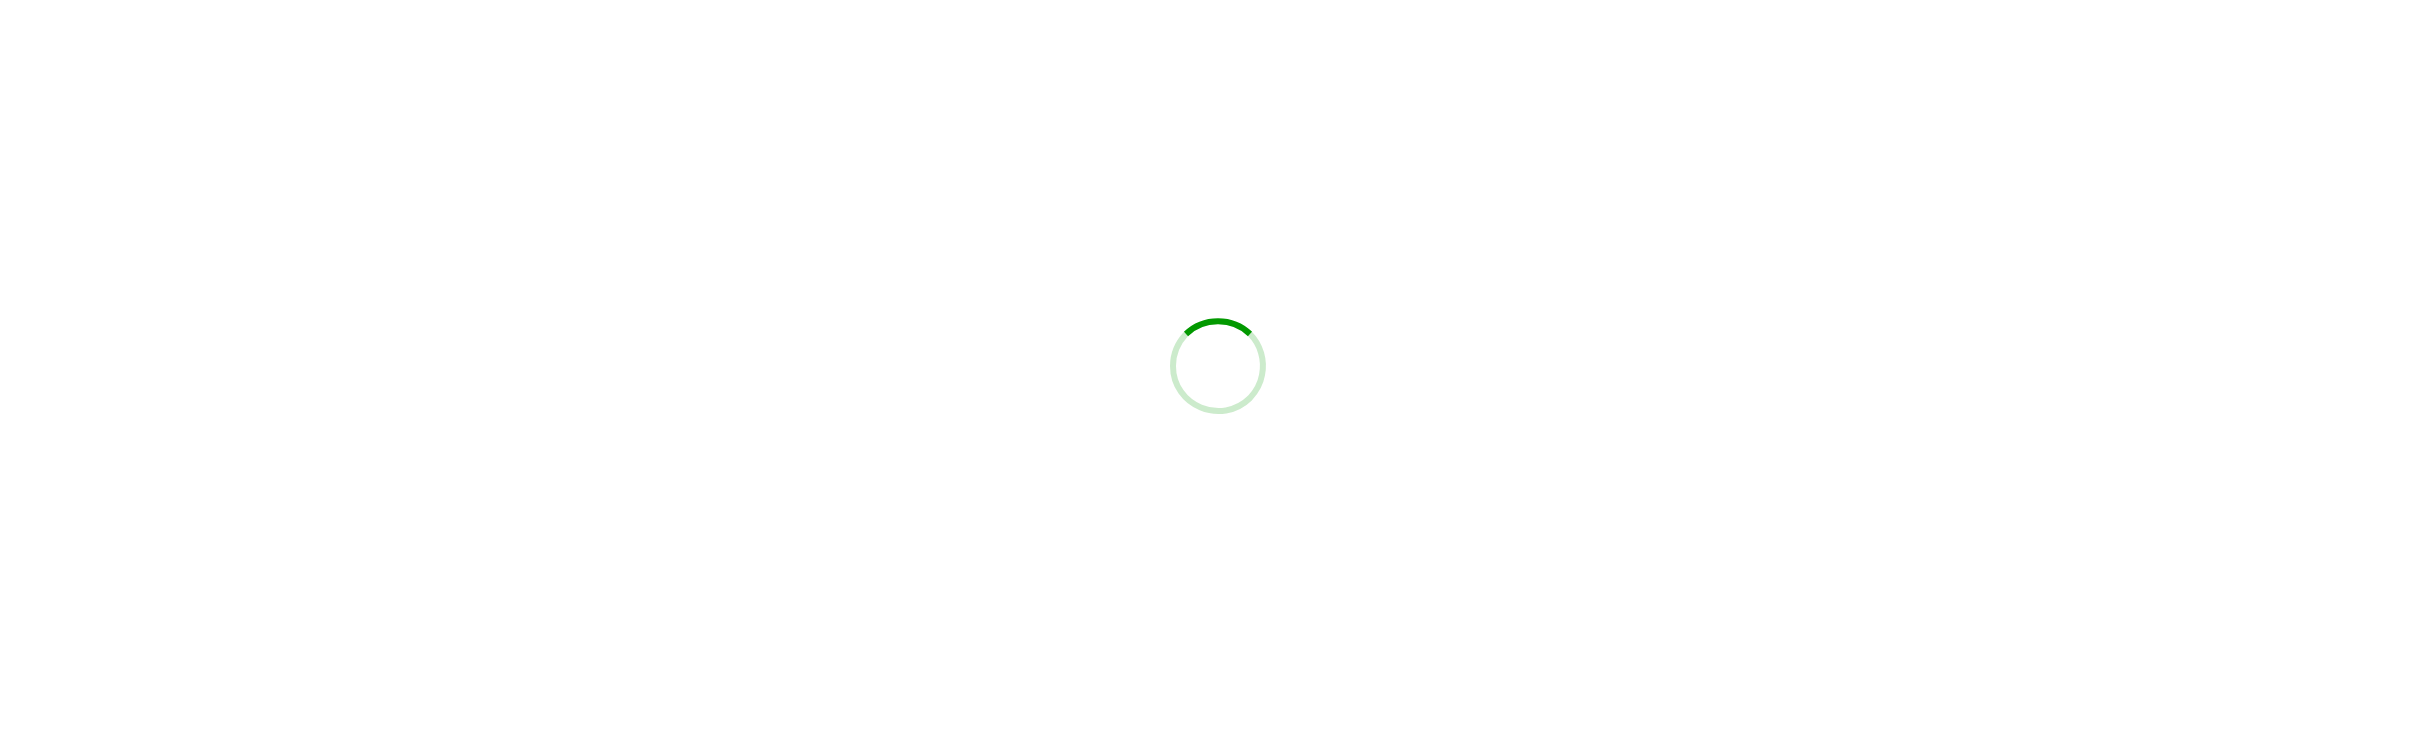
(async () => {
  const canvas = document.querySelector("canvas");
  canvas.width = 2435;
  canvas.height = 732;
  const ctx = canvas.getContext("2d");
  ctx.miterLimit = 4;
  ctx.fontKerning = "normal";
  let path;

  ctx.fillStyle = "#ffffff";
  ctx.fillRect(0, 0, 2435, 732);
  path = new Path2D("M1186 334C1203.5 317 1232.5 317 1250 334");
  ctx.strokeStyle = "#029900";
  ctx.lineWidth = 6;
  ctx.stroke(path);
  path = new Path2D("M1250 334C1260.5 344.5 1265 360 1262 375C1260.5 383.5 1256 391.5 1250 398C1221.5 426 1173 406 1173 366C1173 354 1178 342.5 1186 334");
  ctx.strokeStyle = "rgba(2, 153, 0, 0.2)";
  ctx.stroke(path);
})();
